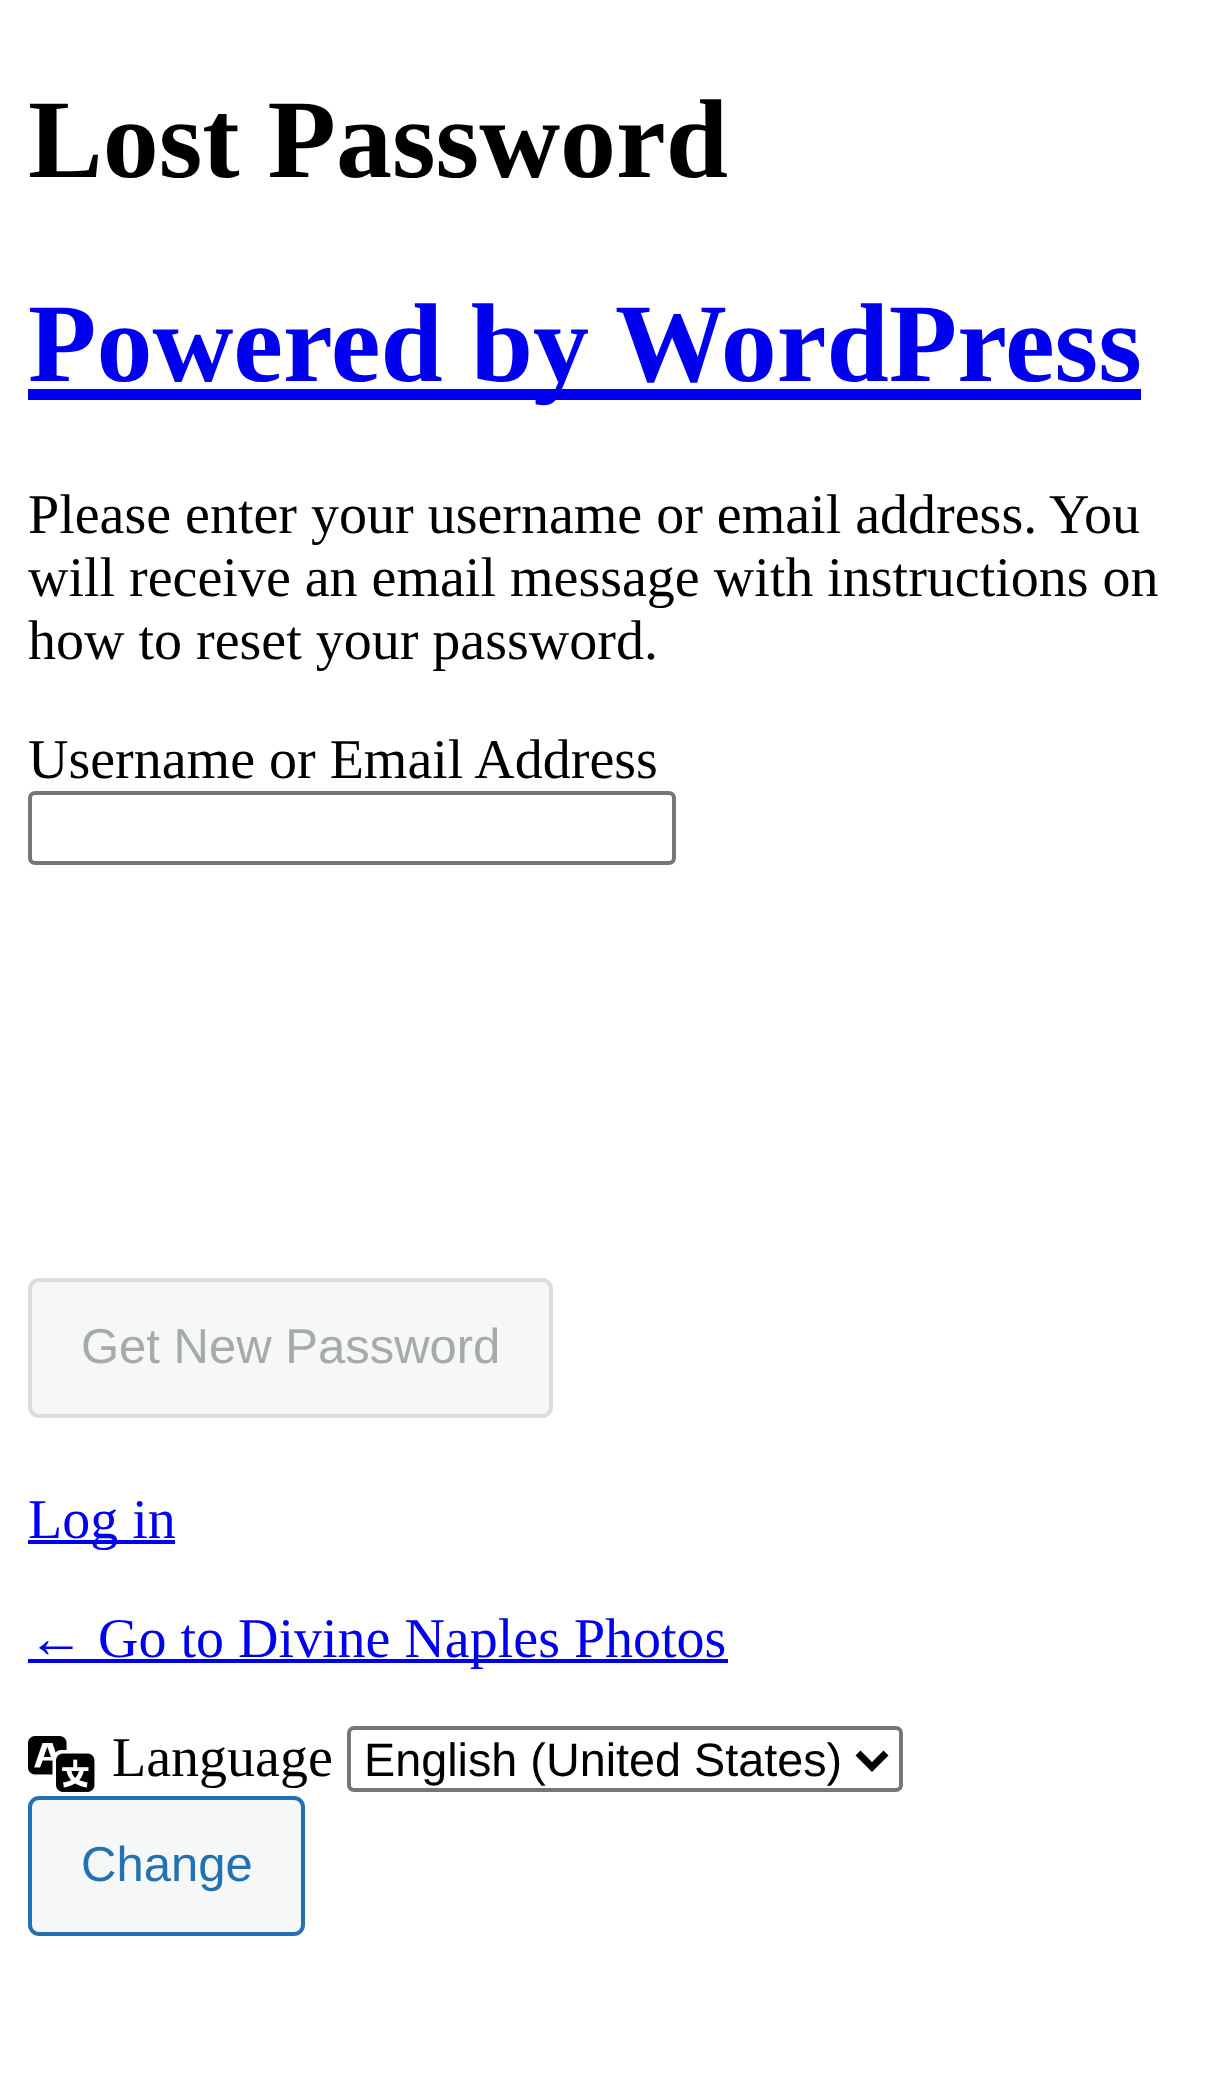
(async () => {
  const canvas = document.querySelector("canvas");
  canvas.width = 1212;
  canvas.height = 2094;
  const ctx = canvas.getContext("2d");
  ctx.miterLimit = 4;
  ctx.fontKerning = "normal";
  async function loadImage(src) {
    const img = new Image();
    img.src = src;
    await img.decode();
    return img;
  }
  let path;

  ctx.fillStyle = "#ffffff";
  ctx.fillRect(0, 0, 1212, 2094);
  ctx.fillStyle = "#0000ee";
  ctx.fillRect(28, 389, 1113, 11);
  ctx.beginPath();
  ctx.roundRect(30, 793, 644, 70, 5);
  ctx.strokeStyle = "#767676";
  ctx.lineWidth = 4;
  ctx.stroke();
  ctx.fillStyle = "#f6f7f7";
  ctx.beginPath();
  ctx.roundRect(30, 1280, 521, 136, 9);
  ctx.fill();
  ctx.strokeStyle = "#dcdcde";
  ctx.stroke();
  ctx.fillStyle = "#0000ee";
  ctx.fillRect(28, 1540, 147, 4);
  ctx.fillRect(28, 1659, 700, 4);
  ctx.drawImage(await loadImage("img/1.png"), 28, 1736, 67, 56);
  ctx.beginPath();
  ctx.roundRect(349, 1728, 552, 62, 5);
  ctx.strokeStyle = "#767676";
  ctx.stroke();
  path = new Path2D("M858 1753L872 1767L886 1753");
  ctx.strokeStyle = "#000000";
  ctx.lineWidth = 7;
  ctx.stroke(path);
  ctx.fillStyle = "#f6f7f7";
  ctx.beginPath();
  ctx.roundRect(30, 1798, 273, 136, 9);
  ctx.fill();
  ctx.strokeStyle = "#2271b1";
  ctx.lineWidth = 4;
  ctx.stroke();
  ctx.font = "bold 112px Liberation Serif";
  ctx.fillStyle = "#000000";
  ctx.fillText("Lost Password", 28, 177);
  ctx.fillStyle = "#0000ee";
  ctx.fillText("Powered by WordPress", 28, 381);
  ctx.font = "56px Liberation Serif";
  ctx.fillStyle = "#000000";
  for (const [text, x, y] of [
    ["Please enter your username or email address. You", 28, 533],
    ["will receive an email message with instructions on", 28, 596],
    ["how to reset your password.", 28, 659],
    ["Username or Email Address", 28, 778],
  ]) {
    ctx.fillText(text, x, y);
  }
  ctx.font = "49px Liberation Sans";
  ctx.fillStyle = "#a7aaad";
  ctx.fillText("Get New Password", 81, 1363);
  ctx.font = "56px Liberation Serif";
  ctx.fillStyle = "#0000ee";
  ctx.fillText("Log in", 28, 1538);
  ctx.fillText("← Go to Divine Naples Photos", 28, 1657);
  ctx.fillStyle = "#000000";
  ctx.fillText("Language", 112, 1776);
  ctx.font = "46.75px Liberation Sans";
  ctx.fillText("English (United States)", 364, 1776);
  ctx.font = "49px Liberation Sans";
  ctx.fillStyle = "#2271b1";
  ctx.fillText("Change", 81, 1881);
})();
